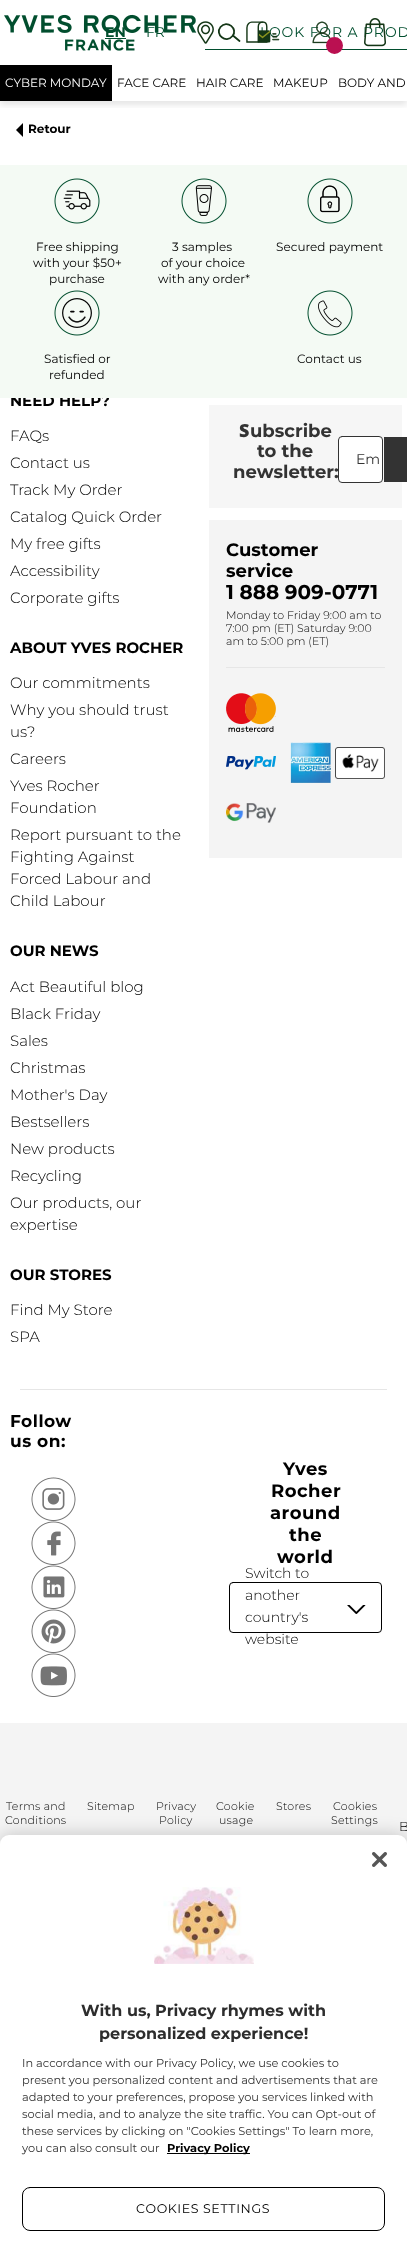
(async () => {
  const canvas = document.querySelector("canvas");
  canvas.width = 407;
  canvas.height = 2251;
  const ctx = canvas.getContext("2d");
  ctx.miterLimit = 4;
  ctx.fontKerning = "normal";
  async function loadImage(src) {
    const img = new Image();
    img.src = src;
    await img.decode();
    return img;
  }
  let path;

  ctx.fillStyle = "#ffffff";
  ctx.fillRect(0, 0, 407, 2251);
  ctx.drawImage(await loadImage("img/1.png"), 4, 14, 193, 37);
  ctx.fillStyle = "#014e2e";
  ctx.fillRect(105, 38, 21, 1);
  ctx.drawImage(await loadImage("img/2.png"), 197, 21, 17, 23);
  path = new Path2D("M220.5 27C227 19 238.5 29 232.5 36C226 44 214.5 34.5 220.5 27Z");
  ctx.strokeStyle = "#143616";
  ctx.lineWidth = 1.8;
  ctx.stroke(path);
  path = new Path2D("M233.5 36L239.5 41");
  ctx.lineCap = "round";
  ctx.lineJoin = "round";
  ctx.stroke(path);
  ctx.fillRect(205, 49, 202, 1);
  ctx.save();
  ctx.beginPath();
  ctx.rect(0, 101, 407, 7);
  ctx.clip();
  ctx.fillStyle = "rgba(0, 0, 0, 0.1)";
  ctx.filter = "blur(3px)";
  ctx.beginPath();
  ctx.rect(0, 69, 407, 36);
  ctx.fill();
  ctx.filter = "none";
  ctx.restore();
  ctx.fillStyle = "#000000";
  ctx.fillRect(0, 65, 112, 36);
  path = new Path2D("M23 123V137L16 130Z");
  ctx.fill(path);
  ctx.fillStyle = "#f4faf4";
  ctx.fillRect(0, 165, 407, 233);
  ctx.drawImage(await loadImage("img/6.png"), 54, 178, 46, 46);
  ctx.drawImage(await loadImage("img/7.png"), 181, 178, 46, 46);
  ctx.drawImage(await loadImage("img/8.png"), 307, 178, 46, 46);
  ctx.drawImage(await loadImage("img/9.png"), 54, 290, 46, 46);
  ctx.drawImage(await loadImage("img/10.png"), 307, 290, 46, 46);
  ctx.fillStyle = "#f6f6f6";
  ctx.fillRect(209, 405, 193, 103);
  ctx.fillStyle = "#ffffff";
  ctx.beginPath();
  ctx.roundRect(338.5, 436.5, 44, 46, 3.5);
  ctx.fill();
  ctx.strokeStyle = "#333333";
  ctx.lineWidth = 1;
  ctx.lineJoin = "miter";
  ctx.stroke();
  for (const [x, y, w, h, color] of [
    [384, 437, 23, 45, "#333333"],
    [209, 520, 193, 338, "#f4f4f4"],
    [226, 667, 159, 1, "#e6e6e6"],
  ]) {
    ctx.fillStyle = color;
    ctx.fillRect(x, y, w, h);
  }
  ctx.drawImage(await loadImage("img/11.png"), 226, 693, 50, 39);
  ctx.drawImage(await loadImage("img/12.png"), 226, 756, 50, 14);
  ctx.drawImage(await loadImage("img/13.png"), 290, 742, 41, 41);
  ctx.drawImage(await loadImage("img/14.png"), 335, 747, 50, 32);
  ctx.drawImage(await loadImage("img/15.png"), 226, 803, 50, 20);
  ctx.fillRect(20, 1389, 367, 1);
  ctx.drawImage(await loadImage("img/16.png"), 31, 1477, 45, 44);
  ctx.drawImage(await loadImage("img/17.png"), 31, 1521, 45, 44);
  ctx.drawImage(await loadImage("img/18.png"), 31, 1565, 45, 44);
  ctx.drawImage(await loadImage("img/19.png"), 31, 1609, 45, 44);
  ctx.drawImage(await loadImage("img/20.png"), 31, 1653, 45, 44);
  ctx.beginPath();
  ctx.roundRect(229.5, 1582.5, 152, 50, 3.5);
  ctx.strokeStyle = "#000000";
  ctx.stroke();
  ctx.drawImage(await loadImage("img/21.png"), 347, 1605, 19, 9);
  ctx.fillStyle = "#f4f4f4";
  ctx.fillRect(0, 1723, 407, 121);
  ctx.fillStyle = "rgba(0, 0, 0, 0.2)";
  ctx.filter = "blur(9px)";
  ctx.beginPath();
  ctx.roundRect(0, 1835, 407, 416, 9);
  ctx.fill();
  ctx.filter = "none";
  ctx.fillStyle = "#ffffff";
  ctx.beginPath();
  ctx.roundRect(0, 1835, 407, 416, [9, 9, 0, 0]);
  ctx.fill();
  ctx.drawImage(await loadImage("img/22.png"), 372, 1852, 15, 15);
  ctx.drawImage(await loadImage("img/23.png"), 154, 1887, 100, 77);
  ctx.fillStyle = "#000000";
  ctx.fillRect(167, 2153, 83, 1);
  ctx.beginPath();
  ctx.roundRect(22.5, 2187.5, 362, 43, 7.5);
  ctx.stroke();
  ctx.font = "bold 14px Montserrat";
  ctx.fillStyle = "#014e2e";
  ctx.fillText("EN", 105, 37);
  ctx.font = "14px Montserrat";
  ctx.fillText("FR", 146, 37);
  ctx.letterSpacing = "0.9px";
  ctx.fillText("LOOK FOR A PROD", 260, 37);
  ctx.drawImage(await loadImage("img/4.png"), 312, 21, 19, 23);
  ctx.fillStyle = "#ba1051";
  ctx.beginPath();
  ctx.arc(334.5, 45.5, 7.5, 0, Math.PI * 2);
  ctx.fill();
  ctx.strokeStyle = "#ba1051";
  ctx.lineWidth = 2;
  ctx.stroke();
  ctx.drawImage(await loadImage("img/5.png"), 364, 18, 22, 29);
  ctx.drawImage(await loadImage("img/3.png"), 246, 21, 34, 22);
  ctx.letterSpacing = "0px";
  ctx.font = "12px Montserrat";
  ctx.fillStyle = "#ffffff";
  ctx.fillText("CYBER MONDAY", 5, 87);
  ctx.fillStyle = "#000000";
  for (const [text, x, y] of [
    ["FACE CARE", 117, 87],
    ["HAIR CARE", 196, 87],
    ["MAKEUP", 273, 87],
    ["BODY AND", 338, 87],
  ]) {
    ctx.fillText(text, x, y);
  }
  ctx.font = "bold 12px Montserrat";
  ctx.fillText("Retour", 28, 133);
  ctx.font = "12px Montserrat";
  for (const [text, x, y] of [
    ["Free shipping", 36, 251],
    ["with your $50+", 33, 267],
    ["purchase", 49, 283],
    ["3 samples", 172, 251],
    ["of your choice", 161, 267],
    ["with any order*", 158, 283],
    ["Secured payment", 276, 251],
    ["Satisfied or", 44, 363],
    ["refunded", 49, 379],
    ["Contact us", 297, 363],
  ]) {
    ctx.fillText(text, x, y);
  }
  ctx.save();
  ctx.beginPath();
  ctx.rect(0, 398, 407, 1594);
  ctx.clip();
  ctx.font = "bold 15px Montserrat";
  ctx.fillText("NEED HELP?", 10, 406);
  ctx.restore();
  ctx.font = "300 15px Montserrat";
  for (const [text, x, y] of [
    ["FAQs", 10, 441],
    ["Contact us", 10, 468],
    ["Track My Order", 10, 495],
    ["Catalog Quick Order", 10, 522],
    ["My free gifts", 10, 549],
    ["Accessibility", 10, 576],
    ["Corporate gifts", 10, 603],
  ]) {
    ctx.fillText(text, x, y);
  }
  ctx.font = "bold 15px Montserrat";
  ctx.fillText("ABOUT YVES ROCHER", 10, 653);
  ctx.font = "300 15px Montserrat";
  for (const [text, x, y] of [
    ["Our commitments", 10, 688],
    ["Why you should trust", 10, 715],
    ["us?", 10, 737],
    ["Careers", 10, 764],
    ["Yves Rocher", 10, 791],
    ["Foundation", 10, 813],
    ["Report pursuant to the", 10, 840],
    ["Fighting Against", 10, 862],
    ["Forced Labour and", 10, 884],
    ["Child Labour", 10, 906],
  ]) {
    ctx.fillText(text, x, y);
  }
  ctx.font = "bold 15px Montserrat";
  ctx.fillText("OUR NEWS", 10, 956);
  ctx.font = "300 15px Montserrat";
  for (const [text, x, y] of [
    ["Act Beautiful blog", 10, 992],
    ["Black Friday", 10, 1019],
    ["Sales", 10, 1046],
    ["Christmas", 10, 1073],
    ["Mother's Day", 10, 1100],
    ["Bestsellers", 10, 1127],
    ["New products", 10, 1154],
    ["Recycling", 10, 1181],
    ["Our products, our", 10, 1208],
    ["expertise", 10, 1230],
  ]) {
    ctx.fillText(text, x, y);
  }
  ctx.font = "bold 15px Montserrat";
  ctx.fillText("OUR STORES", 10, 1280);
  ctx.font = "300 15px Montserrat";
  ctx.fillText("Find My Store", 10, 1315);
  ctx.fillText("SPA", 10, 1342);
  ctx.font = "900 18px Noto Sans";
  ctx.fillStyle = "#333333";
  ctx.fillText("S", 239, 437);
  ctx.font = "bold 18px Montserrat";
  for (const [text, x, y] of [
    ["ubscribe", 250, 437],
    ["to the", 257, 457],
    ["newsletter:", 233, 478],
  ]) {
    ctx.fillText(text, x, y);
  }
  ctx.font = "14px Montserrat";
  ctx.fillText("Em", 356, 464);
  ctx.font = "bold 18px Montserrat";
  ctx.fillStyle = "#000000";
  ctx.fillText("Customer", 226, 556);
  ctx.fillText("service", 226, 577);
  ctx.font = "bold 20px Montserrat";
  ctx.fillText("1 888 909-0771", 226, 599);
  ctx.font = "300 11px Montserrat";
  for (const [text, x, y] of [
    ["Monday to Friday 9:00 am to", 226, 619],
    ["7:00 pm (ET) Saturday 9:00", 226, 632],
    ["am to 5:00 pm (ET)", 226, 645],
  ]) {
    ctx.fillText(text, x, y);
  }
  ctx.letterSpacing = "0.5px";
  ctx.font = "bold 17px Montserrat";
  ctx.fillText("Follow", 10, 1427);
  ctx.fillText("us on:", 10, 1447);
  ctx.font = "bold 18px Montserrat";
  for (const [text, x, y] of [
    ["Yves", 283, 1475],
    ["Rocher", 271, 1497],
    ["around", 270, 1519],
    ["the", 289, 1541],
    ["world", 277, 1563],
  ]) {
    ctx.fillText(text, x, y);
  }
  ctx.letterSpacing = "0px";
  ctx.font = "300 14px Montserrat";
  for (const [text, x, y] of [
    ["Switch to", 245, 1578],
    ["another", 245, 1600],
    ["country's", 245, 1622],
    ["website", 245, 1644],
  ]) {
    ctx.fillText(text, x, y);
  }
  ctx.letterSpacing = "0.25px";
  ctx.font = "300 11px Montserrat";
  for (const [text, x, y] of [
    ["Terms and", 6, 1810],
    ["Conditions", 5, 1824],
    ["Sitemap", 87, 1810],
    ["Privacy", 156, 1810],
    ["Policy", 159, 1824],
    ["Cookie", 216, 1810],
    ["usage", 219, 1824],
    ["Stores", 276, 1810],
    ["Cookies", 333, 1810],
    ["Settings", 331, 1824],
  ]) {
    ctx.fillText(text, x, y);
  }
  ctx.letterSpacing = "0px";
  ctx.font = "300 13px Montserrat";
  ctx.fillText("B", 399, 1831);
  ctx.font = "bold 16px Montserrat";
  ctx.fillStyle = "#2d2d2d";
  ctx.fillText("With us, Privacy rhymes with", 81, 2016);
  ctx.fillText("personalized experience!", 99, 2039);
  ctx.font = "11.4px Montserrat";
  ctx.fillStyle = "#333333";
  for (const [text, x, y] of [
    ["In accordance with our Privacy Policy, we use cookies to", 22, 2067],
    ["present you personalized content and advertisements that are", 22, 2084],
    ["adapted to your preferences, propose you services linked with", 22, 2101],
    ["social media, and to analyze the site traffic. You can Opt-out of", 22, 2118],
    ["these services by clicking on \"Cookies Settings\" To learn more,", 22, 2135],
    ["you can also consult our", 22, 2152],
  ]) {
    ctx.fillText(text, x, y);
  }
  ctx.font = "bold 11.4px Montserrat";
  ctx.fillStyle = "#000000";
  ctx.fillText("Privacy Policy", 167, 2152);
  ctx.letterSpacing = "0.6px";
  ctx.font = "12.6px Montserrat";
  ctx.fillText("COOKIES SETTINGS", 136, 2213);
})();
